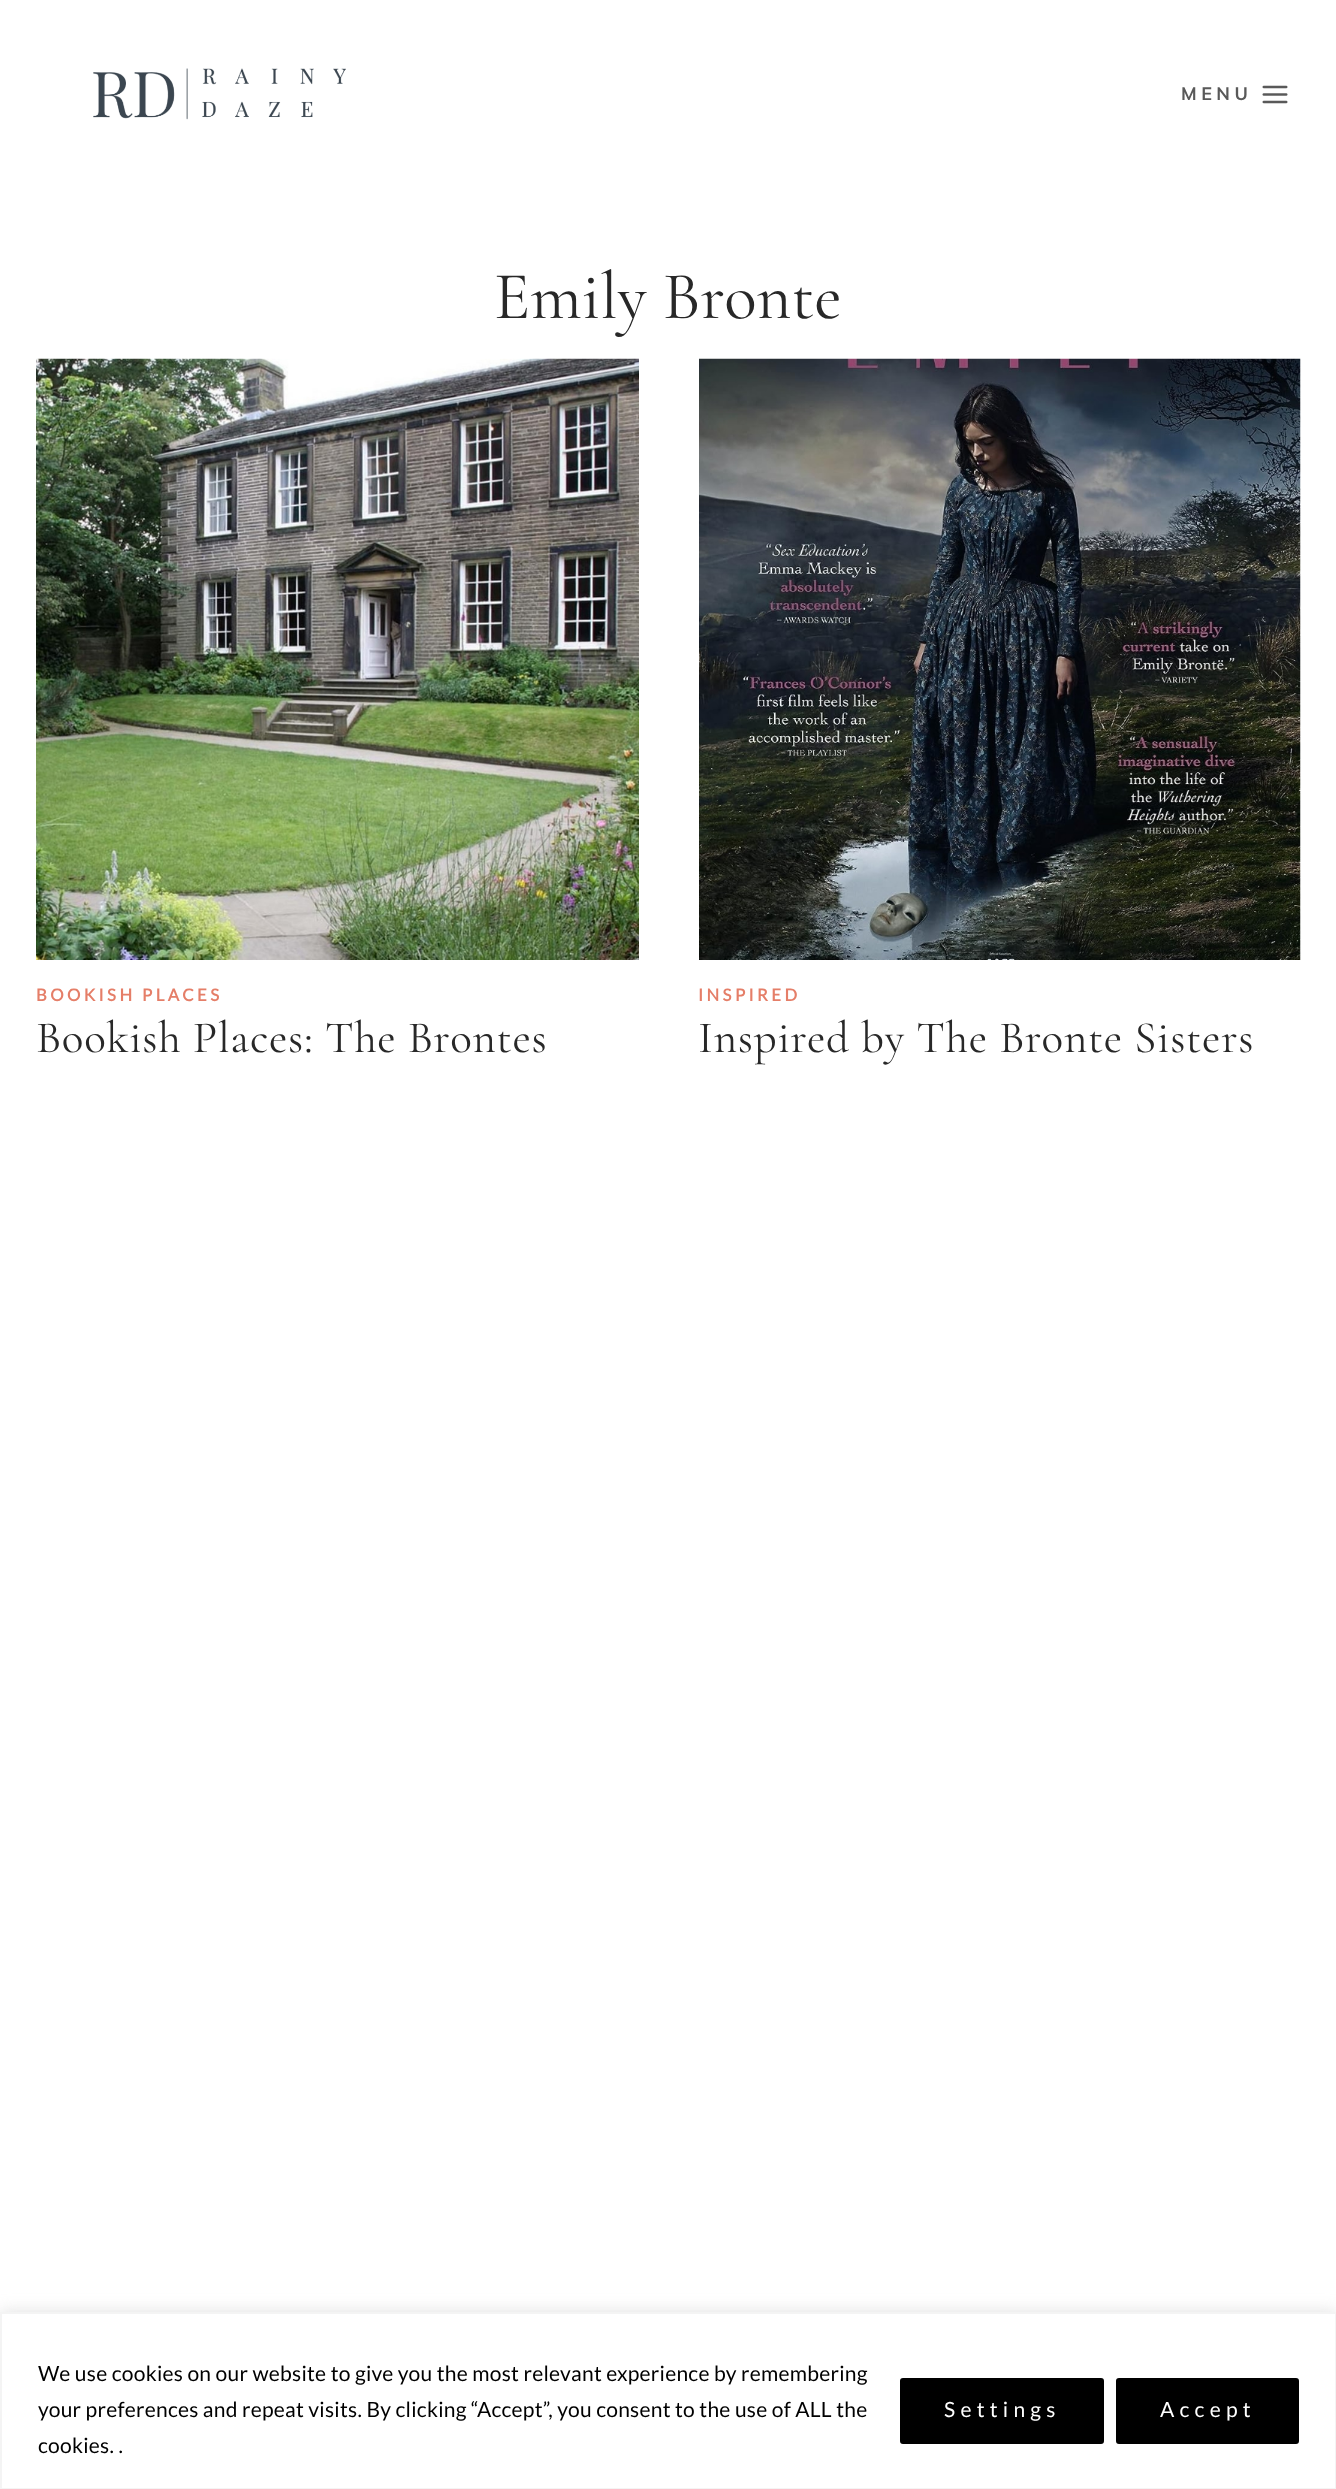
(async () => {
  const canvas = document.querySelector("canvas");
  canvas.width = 1336;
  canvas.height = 2489;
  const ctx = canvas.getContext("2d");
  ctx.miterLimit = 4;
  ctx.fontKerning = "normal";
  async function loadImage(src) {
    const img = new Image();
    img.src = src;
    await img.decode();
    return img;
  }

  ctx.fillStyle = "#ffffff";
  ctx.fillRect(0, 0, 1336, 2489);
  ctx.drawImage(await loadImage("img/1.png"), 93, 68, 253, 52);
  ctx.drawImage(await loadImage("img/2.png"), 1262, 85, 26, 19);
  ctx.drawImage(await loadImage("img/3.png"), 36, 358, 603, 602);
  ctx.drawImage(await loadImage("img/4.png"), 699, 358, 602, 602);
  ctx.fillStyle = "rgba(172, 171, 171, 0.3)";
  ctx.filter = "blur(7.5px)";
  ctx.beginPath();
  ctx.rect(0, 2310, 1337, 179);
  ctx.fill();
  ctx.filter = "none";
  ctx.fillStyle = "#ffffff";
  ctx.beginPath();
  ctx.rect(1, 2313, 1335, 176);
  ctx.fill();
  ctx.strokeStyle = "#f4f4f4";
  ctx.lineWidth = 2;
  ctx.stroke();
  ctx.fillStyle = "#000000";
  ctx.beginPath();
  ctx.roundRect(901.5, 2379.5, 201, 63, 1.5);
  ctx.fill();
  ctx.strokeStyle = "#000000";
  ctx.lineWidth = 3;
  ctx.stroke();
  ctx.beginPath();
  ctx.roundRect(1117.5, 2379.5, 180, 63, 1.5);
  ctx.fill();
  ctx.stroke();
  ctx.letterSpacing = "4.5px";
  ctx.font = "bold 18px Mulish";
  ctx.fillStyle = "#595959";
  ctx.fillText("MENU", 1181, 100);
  ctx.letterSpacing = "0px";
  ctx.font = "67.5px Cormorant Garamond";
  ctx.fillStyle = "#282828";
  ctx.fillText("Emily Bronte", 494, 318);
  ctx.letterSpacing = "3.4px";
  ctx.font = "bold 16.75px Lato";
  ctx.fillStyle = "#e57e68";
  ctx.fillText("BOOKISH PLACES", 36, 1001);
  ctx.letterSpacing = "0.75px";
  ctx.font = "45px Cormorant Garamond";
  ctx.fillStyle = "#282828";
  ctx.fillText("Bookish Places: The Brontes", 36, 1052);
  ctx.letterSpacing = "3.4px";
  ctx.font = "bold 16.75px Lato";
  ctx.fillStyle = "#e57e68";
  ctx.fillText("INSPIRED", 698, 1001);
  ctx.letterSpacing = "0.75px";
  ctx.font = "45px Cormorant Garamond";
  ctx.fillStyle = "#282828";
  ctx.fillText("Inspired by The Bronte Sisters", 698, 1052);
  ctx.letterSpacing = "0.25px";
  ctx.font = "21px Lato";
  ctx.fillStyle = "#000000";
  for (const [text, x, y] of [
    ["We use cookies on our website to give you the most relevant experience by remembering", 38, 2381],
    ["your preferences and repeat visits. By clicking “Accept”, you consent to the use of ALL the", 38, 2417],
    ["cookies. .", 38, 2453],
  ]) {
    ctx.fillText(text, x, y);
  }
  ctx.letterSpacing = "5.25px";
  ctx.fillStyle = "#ffffff";
  ctx.fillText("Settings", 944, 2417);
  ctx.fillText("Accept", 1160, 2417);
})();
